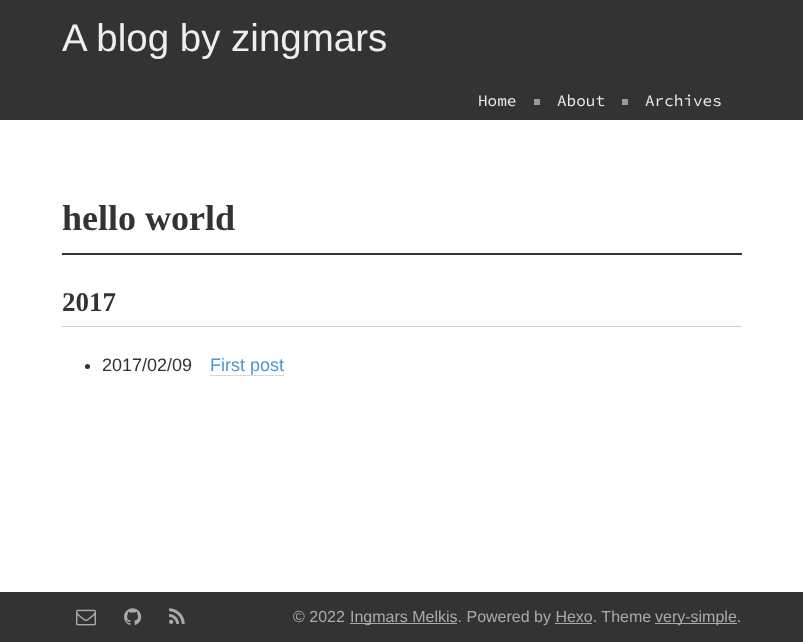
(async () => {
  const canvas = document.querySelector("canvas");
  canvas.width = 803;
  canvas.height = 642;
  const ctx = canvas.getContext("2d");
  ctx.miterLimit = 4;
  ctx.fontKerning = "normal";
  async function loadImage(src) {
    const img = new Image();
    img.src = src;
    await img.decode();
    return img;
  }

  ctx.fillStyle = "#ffffff";
  ctx.fillRect(0, 0, 803, 642);
  for (const [x, y, w, h, color] of [
    [0, 0, 803, 120, "#333333"],
    [534, 99, 6, 6, "#999999"],
    [622, 99, 6, 6, "#999999"],
    [62, 253, 680, 2, "#333333"],
    [62, 326, 680, 1, "#cccccc"],
  ]) {
    ctx.fillStyle = color;
    ctx.fillRect(x, y, w, h);
  }
  ctx.fillStyle = "#333333";
  ctx.beginPath();
  ctx.arc(87.5, 366.5, 2.5, 0, Math.PI * 2);
  ctx.fill();
  ctx.fillStyle = "#d7d7d7";
  ctx.fillRect(210, 375, 74, 1);
  ctx.fillStyle = "#333333";
  ctx.fillRect(0, 592, 803, 50);
  ctx.drawImage(await loadImage("img/1.png"), 76, 609, 20, 17);
  ctx.drawImage(await loadImage("img/2.png"), 124, 608, 18, 17);
  ctx.drawImage(await loadImage("img/3.png"), 169, 608, 16, 16);
  for (const [x, y, w, h, color] of [
    [350, 623, 107, 1, "#aaaaaa"],
    [655, 623, 82, 1, "#aaaaaa"],
    [555, 623, 37, 1, "#aaaaaa"],
  ]) {
    ctx.fillStyle = color;
    ctx.fillRect(x, y, w, h);
  }
  ctx.font = "38.5px Liberation Sans";
  ctx.fillStyle = "#eeeeee";
  ctx.fillText("A blog by zingmars", 62, 51);
  ctx.font = "16px Source Code Pro";
  for (const [text, x, y] of [
    ["Home", 478, 106],
    ["About", 557, 106],
    ["Archives", 645, 106],
  ]) {
    ctx.fillText(text, x, y);
  }
  ctx.font = "bold 36px Liberation Serif";
  ctx.fillStyle = "#333333";
  ctx.fillText("hello world", 62, 230);
  ctx.font = "bold 27px Liberation Serif";
  ctx.fillText("2017", 62, 311);
  ctx.font = "18px Liberation Sans";
  ctx.fillText("2017/02/09", 102, 371);
  ctx.fillStyle = "#4a98d0";
  ctx.fillText("First post", 210, 371);
  ctx.font = "16px Liberation Sans";
  ctx.fillStyle = "#aaaaaa";
  for (const [text, x, y] of [
    ["© 2022", 293, 622],
    ["Ingmars Melkis. Powered by Hexo. Theme", 350, 622],
    ["very-simple.", 655, 622],
  ]) {
    ctx.fillText(text, x, y);
  }
})();
